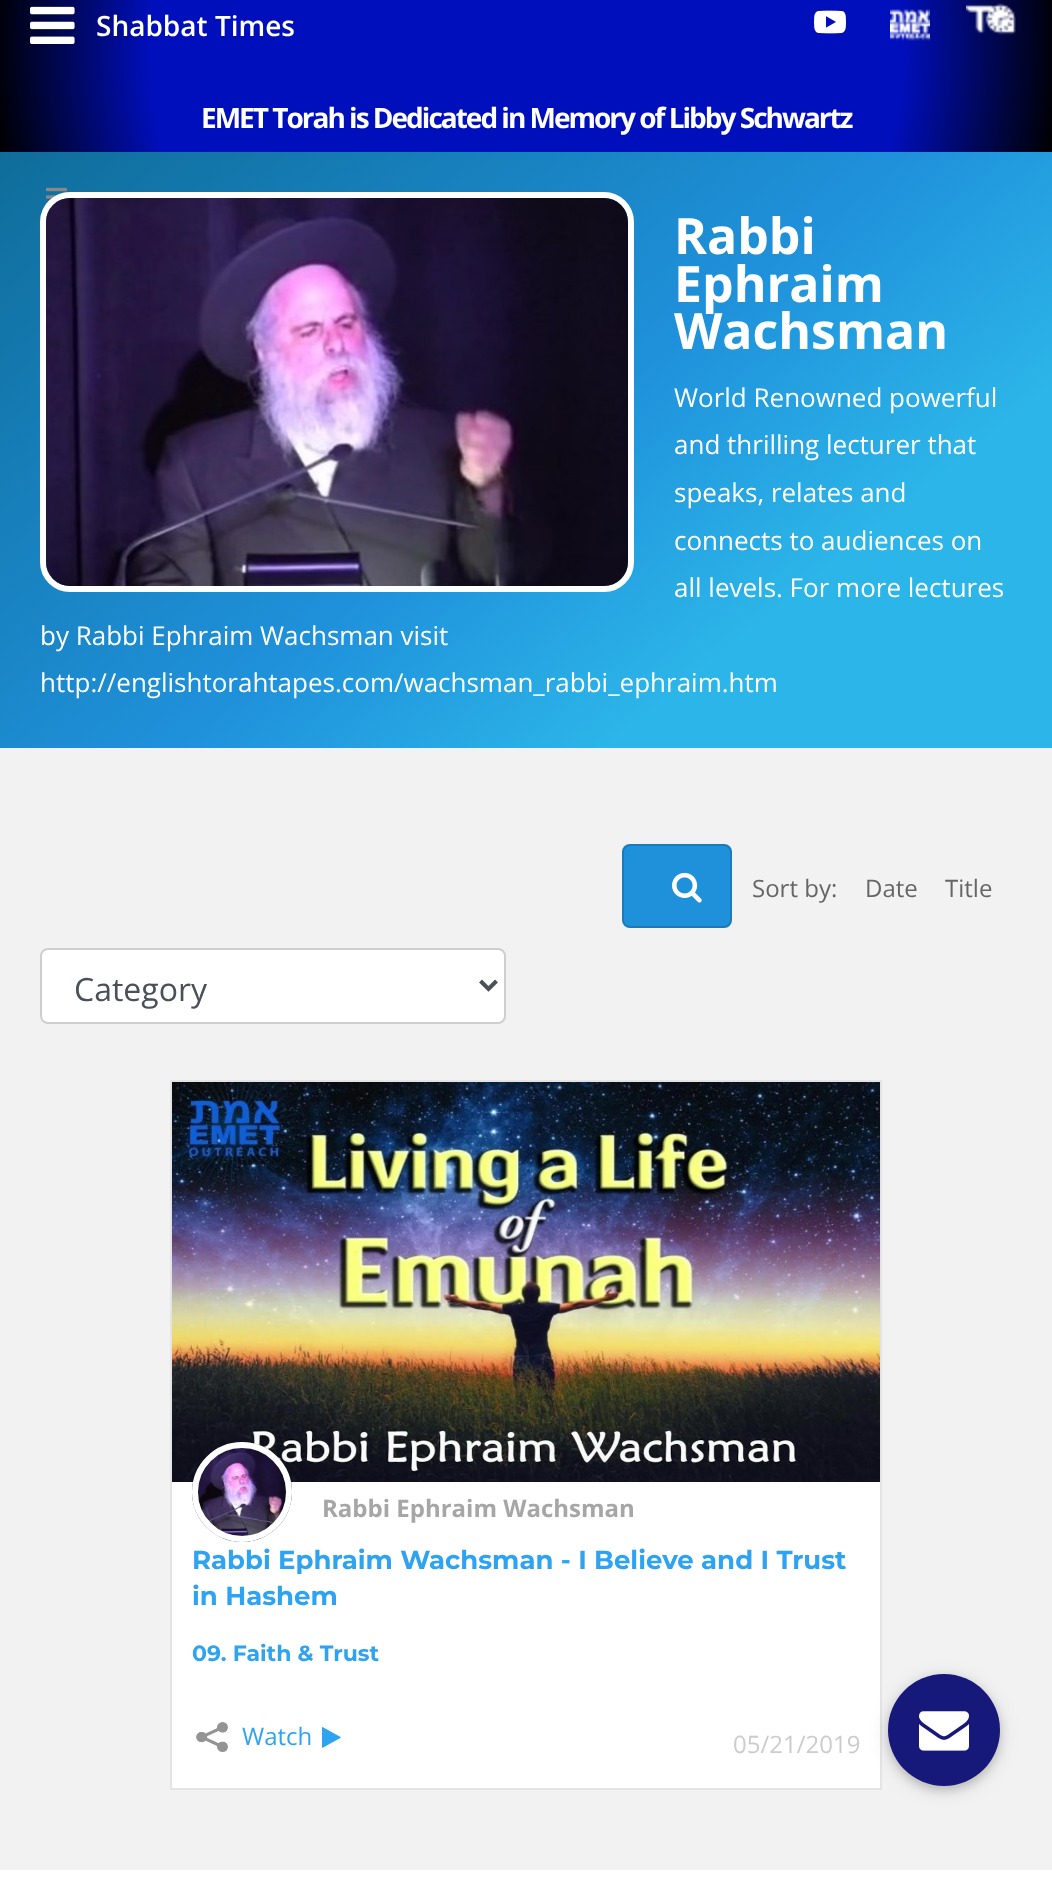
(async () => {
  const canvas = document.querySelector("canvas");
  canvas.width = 1052;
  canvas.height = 1880;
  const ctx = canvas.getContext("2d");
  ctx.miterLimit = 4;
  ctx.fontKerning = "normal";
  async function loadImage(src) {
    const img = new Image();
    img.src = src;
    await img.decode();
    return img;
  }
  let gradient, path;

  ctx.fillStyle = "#ffffff";
  ctx.fillRect(0, 0, 1052, 1880);
  gradient = ctx.createRadialGradient(526, 50, 0, 526, 50, 536);
  gradient.addColorStop(0.7, "#000fbc");
  gradient.addColorStop(1, "#000000");
  ctx.fillStyle = gradient;
  ctx.fillRect(0, 0, 1052, 152);
  ctx.drawImage(await loadImage("img/1.png"), 30, 6, 45, 38);
  ctx.drawImage(await loadImage("img/2.png"), 814, 10, 32, 24);
  ctx.drawImage(await loadImage("img/3.png"), 890, 9, 40, 32);
  ctx.drawImage(await loadImage("img/4.png"), 966, 3, 50, 32);
  gradient = ctx.createLinearGradient(172, 13, 880, 887);
  gradient.addColorStop(0, "#0f6d9a");
  gradient.addColorStop(0.51, "#1f91db");
  gradient.addColorStop(0.75, "#2cb5e8");
  ctx.fillStyle = gradient;
  ctx.fillRect(0, 152, 1052, 596);
  ctx.drawImage(await loadImage("img/5.png"), 46, 187, 21, 20);
  ctx.fillStyle = "#f2f2f2";
  ctx.fillRect(0, 748, 1052, 1122);
  ctx.beginPath();
  ctx.roundRect(43, 195, 588, 394, 27);
  ctx.strokeStyle = "#ffffff";
  ctx.lineWidth = 6;
  ctx.stroke();
  ctx.drawImage(await loadImage("img/6.png"), 46, 198, 582, 388);
  ctx.fillStyle = "#1f91db";
  ctx.beginPath();
  ctx.roundRect(622, 844, 110, 84, 8);
  ctx.fill();
  ctx.beginPath();
  ctx.roundRect(623, 845, 108, 82, 7);
  ctx.strokeStyle = "rgba(0, 0, 0, 0.15)";
  ctx.lineWidth = 2;
  ctx.stroke();
  ctx.drawImage(await loadImage("img/7.png"), 672, 872, 30, 31);
  ctx.fillStyle = "#ffffff";
  ctx.beginPath();
  ctx.roundRect(42, 950, 462, 72, 6);
  ctx.fill();
  ctx.beginPath();
  ctx.roundRect(41, 949, 464, 74, 7);
  ctx.stroke();
  path = new Path2D("M480.5 981L488.5 989L496.5 981");
  ctx.strokeStyle = "#495057";
  ctx.lineWidth = 4;
  ctx.stroke(path);
  ctx.fillRect(172, 1482, 708, 306);
  ctx.strokeStyle = "#e4e4e4";
  ctx.lineWidth = 2;
  ctx.strokeRect(171, 1081, 710, 708);
  ctx.drawImage(await loadImage("img/8.png"), 172, 1082, 708, 400);
  ctx.drawImage(await loadImage("img/9.png"), 192, 1442, 100, 100);
  ctx.beginPath();
  ctx.arc(242, 1492, 47, 0, Math.PI * 2);
  ctx.strokeStyle = "#ffffff";
  ctx.lineWidth = 6;
  ctx.stroke();
  ctx.drawImage(await loadImage("img/10.png"), 196, 1722, 32, 30);
  ctx.drawImage(await loadImage("img/11.png"), 322, 1727, 19, 21);
  ctx.fillStyle = "rgba(0, 0, 0, 0.12)";
  ctx.filter = "blur(10px)";
  ctx.beginPath();
  ctx.roundRect(888, 1678, 112, 112, 56);
  ctx.fill();
  ctx.filter = "none";
  ctx.fillStyle = "rgba(0, 0, 0, 0.16)";
  ctx.filter = "blur(5px)";
  ctx.beginPath();
  ctx.roundRect(888, 1678, 112, 112, 56);
  ctx.fill();
  ctx.filter = "none";
  ctx.fillStyle = "#161979";
  ctx.beginPath();
  ctx.arc(944, 1730, 56, 0, Math.PI * 2);
  ctx.fill();
  ctx.drawImage(await loadImage("img/12.png"), 919, 1711, 50, 40);
  ctx.font = "600 28px Open Sans";
  ctx.fillStyle = "#ffffff";
  ctx.fillText("Shabbat Times", 96, 36);
  ctx.letterSpacing = "-2px";
  ctx.font = "bold 28px Open Sans";
  ctx.fillText("EMET Torah is Dedicated in Memory of Libby Schwartz", 201, 128);
  ctx.letterSpacing = "0px";
  ctx.font = "bold 50px Open Sans";
  for (const [text, x, y] of [
    ["Rabbi", 674, 254],
    ["Ephraim", 674, 302],
    ["Wachsman", 674, 349],
  ]) {
    ctx.fillText(text, x, y);
  }
  ctx.font = "26px Open Sans";
  for (const [text, x, y] of [
    ["World Renowned powerful", 674, 407],
    ["and thrilling lecturer that", 674, 454],
    ["speaks, relates and", 674, 502],
    ["connects to audiences on", 674, 550],
    ["all levels. For more lectures", 674, 597],
    ["by Rabbi Ephraim Wachsman visit", 40, 645],
    ["http://englishtorahtapes.com/wachsman_rabbi_ephraim.htm", 40, 692],
  ]) {
    ctx.fillText(text, x, y);
  }
  ctx.font = "24px Open Sans";
  ctx.fillStyle = "#666666";
  for (const [text, x, y] of [
    ["Sort by:", 752, 897],
    ["Date", 865, 897],
    ["Title", 945, 897],
  ]) {
    ctx.fillText(text, x, y);
  }
  ctx.font = "32px Open Sans";
  ctx.fillStyle = "#495057";
  ctx.fillText("Category", 74, 1001);
  ctx.font = "bold 24px Open Sans";
  ctx.fillStyle = "#a6a6a6";
  ctx.fillText("Rabbi Ephraim Wachsman", 322, 1517);
  ctx.font = "bold 26px Montserrat";
  ctx.fillStyle = "#2ea3f2";
  ctx.fillText("Rabbi Ephraim Wachsman - I Believe and I Trust", 192, 1569);
  ctx.fillText("in Hashem", 192, 1605);
  ctx.font = "bold 22px Montserrat";
  ctx.fillText("09. Faith & Trust", 192, 1661);
  ctx.font = "24px Open Sans";
  ctx.fillText("Watch", 242, 1745);
  ctx.fillStyle = "#cccccc";
  ctx.fillText("05/21/2019", 733, 1753);
})();
